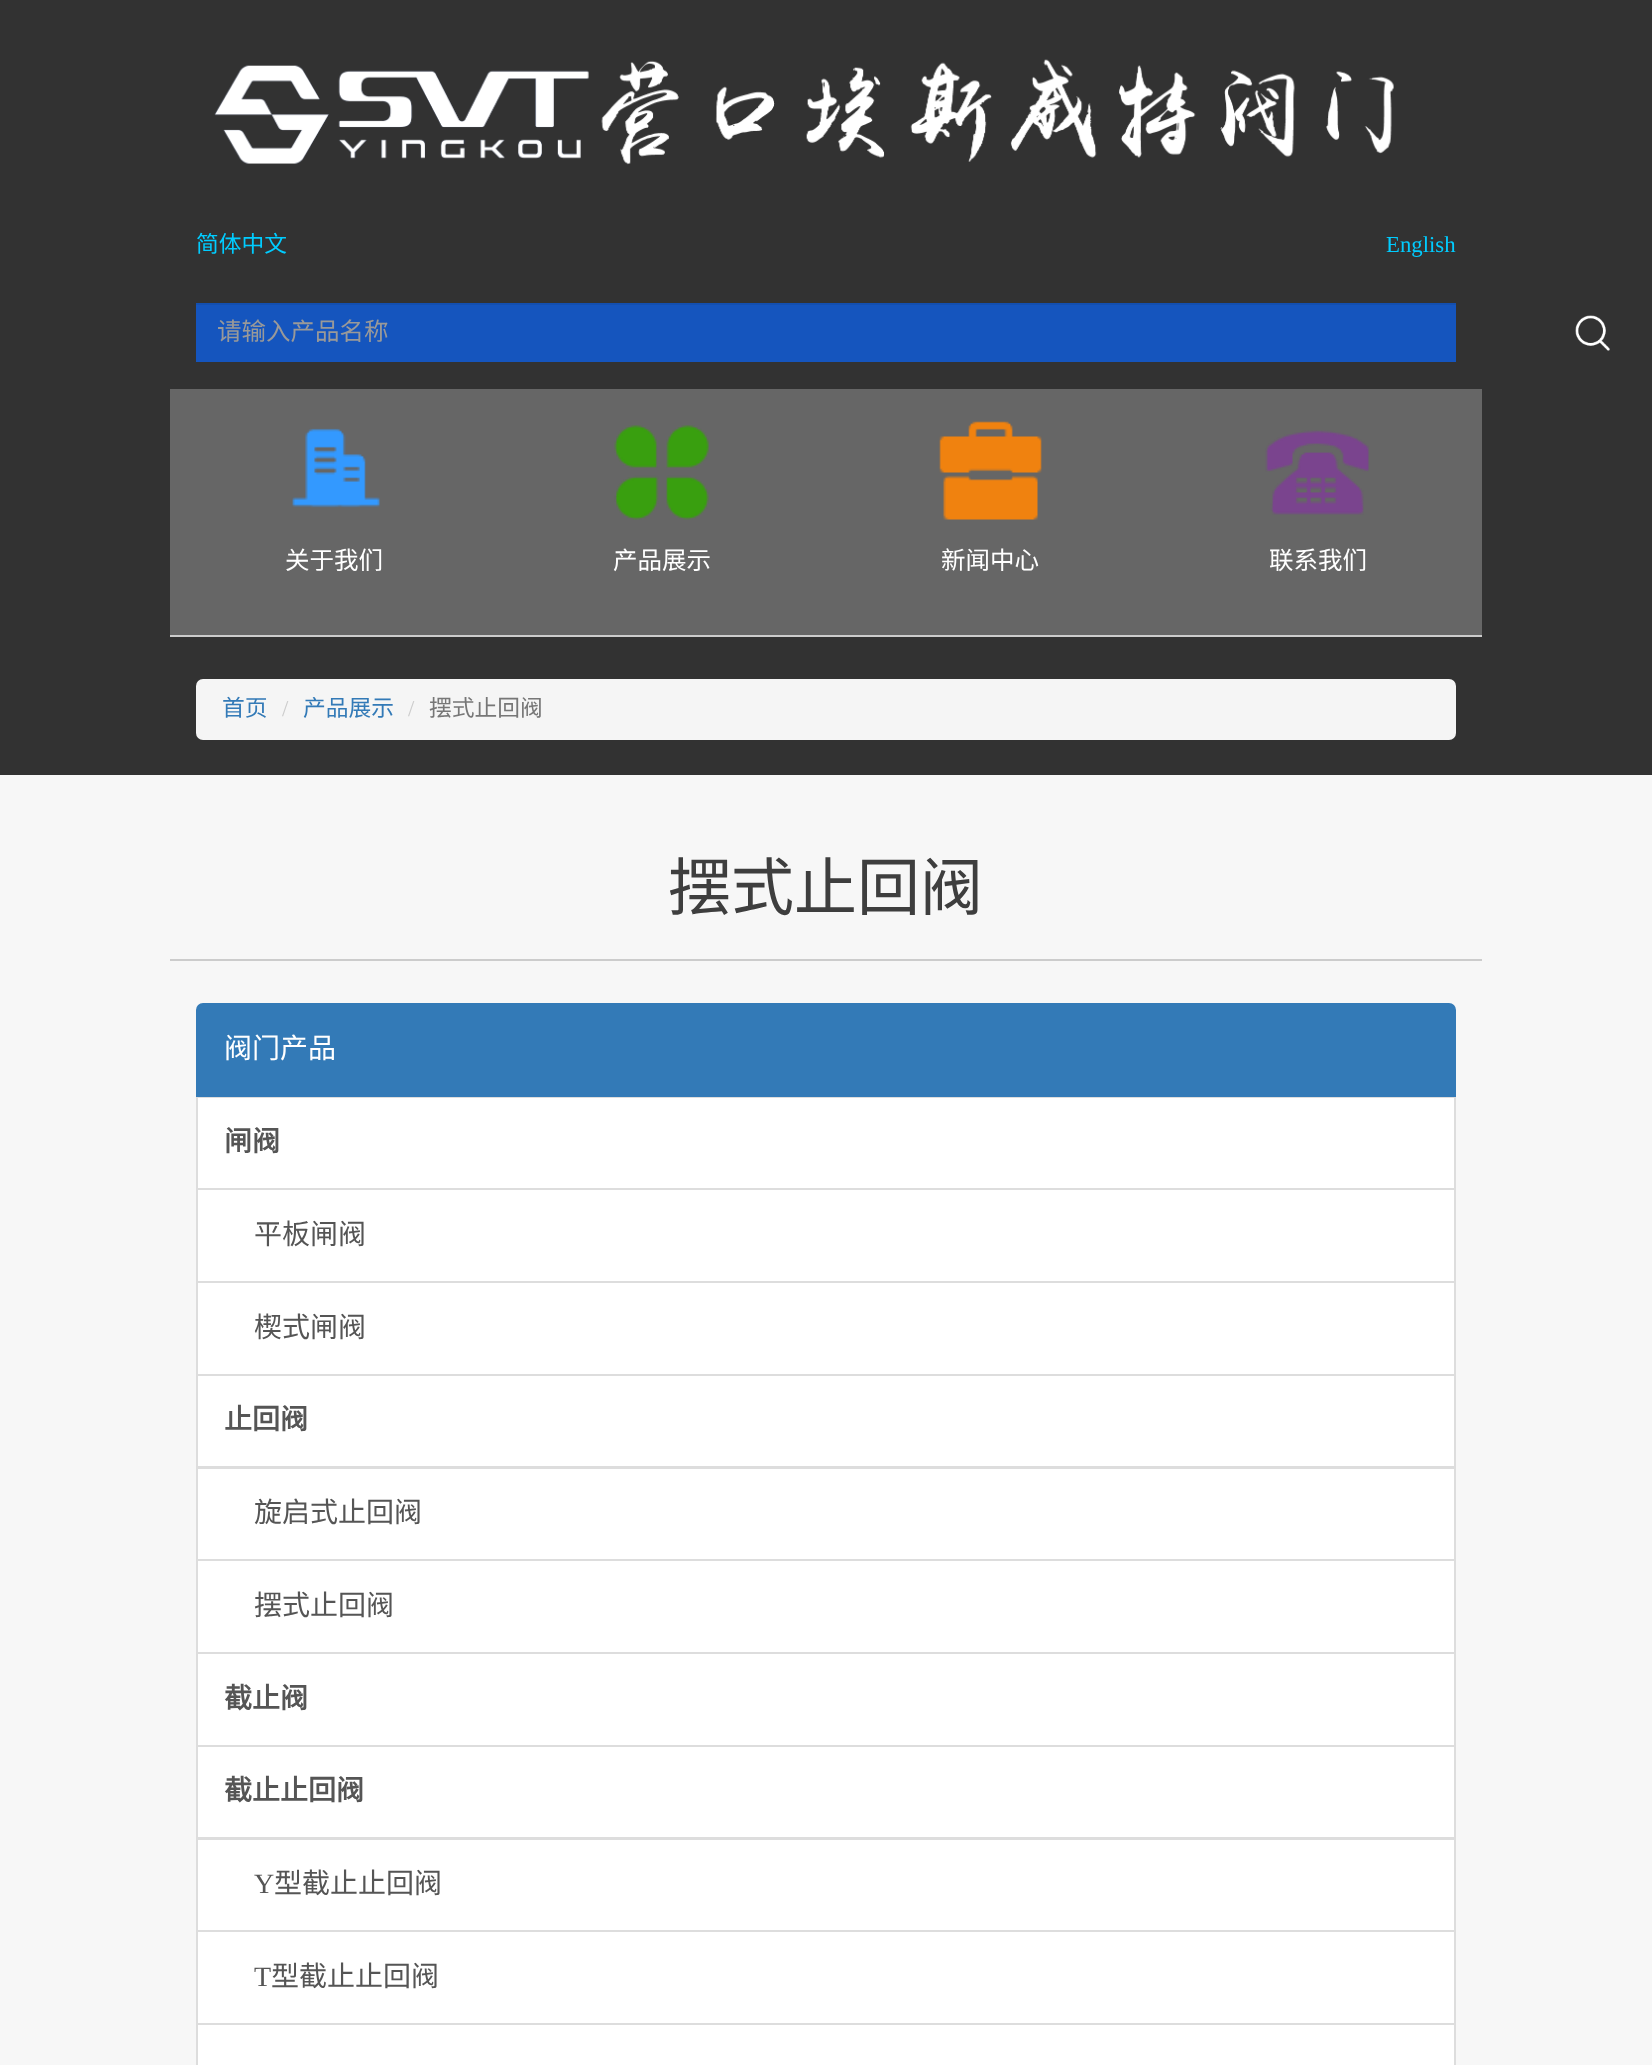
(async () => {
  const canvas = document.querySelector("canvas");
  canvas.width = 1652;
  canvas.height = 2065;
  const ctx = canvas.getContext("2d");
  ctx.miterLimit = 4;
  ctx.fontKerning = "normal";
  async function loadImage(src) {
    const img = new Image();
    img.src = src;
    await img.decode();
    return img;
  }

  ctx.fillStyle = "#323232";
  ctx.fillRect(0, 0, 1652, 2065);
  ctx.drawImage(await loadImage("img/1.png"), 214, 59, 1180, 106);
  ctx.fillStyle = "#1555be";
  ctx.fillRect(196, 305, 1260, 57);
  ctx.fillStyle = "#134fb0";
  ctx.fillRect(196, 303, 1260, 2);
  ctx.drawImage(await loadImage("img/2.png"), 1575, 315, 35, 36);
  ctx.fillStyle = "#666666";
  ctx.fillRect(170, 389, 1312, 246);
  ctx.fillStyle = "#cccccc";
  ctx.fillRect(170, 635, 1312, 2);
  ctx.drawImage(await loadImage("img/3.png"), 292, 428, 88, 80);
  ctx.drawImage(await loadImage("img/4.png"), 614, 425, 95, 95);
  ctx.drawImage(await loadImage("img/5.png"), 939, 421, 103, 99);
  ctx.drawImage(await loadImage("img/6.png"), 1265, 430, 104, 85);
  ctx.fillStyle = "#f5f5f5";
  ctx.beginPath();
  ctx.roundRect(196, 679, 1260, 61, 7);
  ctx.fill();
  ctx.fillStyle = "#f7f7f7";
  ctx.fillRect(0, 775, 1652, 1290);
  ctx.fillStyle = "#cccccc";
  ctx.fillRect(170, 959, 1312, 2);
  ctx.fillStyle = "#ffffff";
  ctx.beginPath();
  ctx.rect(197, 1097, 1258, 92);
  ctx.fill();
  ctx.strokeStyle = "#dddddd";
  ctx.lineWidth = 2;
  ctx.stroke();
  ctx.fillStyle = "#337ab7";
  ctx.beginPath();
  ctx.roundRect(197, 1004, 1258, 92, [6, 6, 0, 0]);
  ctx.fill();
  ctx.strokeStyle = "#337ab7";
  ctx.stroke();
  ctx.fillStyle = "#ffffff";
  ctx.beginPath();
  ctx.rect(197, 1189, 1258, 93);
  ctx.fill();
  ctx.strokeStyle = "#dddddd";
  ctx.stroke();
  ctx.beginPath();
  ctx.rect(197, 1282, 1258, 93);
  ctx.fill();
  ctx.stroke();
  ctx.beginPath();
  ctx.rect(197, 1375, 1258, 92);
  ctx.fill();
  ctx.stroke();
  ctx.beginPath();
  ctx.rect(197, 1468, 1258, 92);
  ctx.fill();
  ctx.stroke();
  ctx.beginPath();
  ctx.rect(197, 1560, 1258, 93);
  ctx.fill();
  ctx.stroke();
  ctx.beginPath();
  ctx.rect(197, 1653, 1258, 93);
  ctx.fill();
  ctx.stroke();
  ctx.beginPath();
  ctx.rect(197, 1746, 1258, 92);
  ctx.fill();
  ctx.stroke();
  ctx.beginPath();
  ctx.rect(197, 1839, 1258, 92);
  ctx.fill();
  ctx.stroke();
  ctx.beginPath();
  ctx.rect(197, 1931, 1258, 93);
  ctx.fill();
  ctx.stroke();
  ctx.beginPath();
  ctx.rect(197, 2024, 1258, 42);
  ctx.fill();
  ctx.stroke();
  ctx.font = "22.75px Noto Sans CJK SC";
  ctx.fillStyle = "#00ccff";
  ctx.fillText("简体中文", 196, 252);
  ctx.font = "22.75px Liberation Serif";
  ctx.fillText("English", 1386, 252);
  ctx.font = "24.5px Noto Sans CJK SC";
  ctx.fillStyle = "#999999";
  ctx.fillText("请输入产品名称", 217, 340);
  ctx.fillStyle = "#ffffff";
  for (const [text, x, y] of [
    ["关于我们", 285, 569],
    ["产品展示", 613, 569],
    ["新闻中心", 941, 569],
    ["联系我们", 1269, 569],
  ]) {
    ctx.fillText(text, x, y);
  }
  ctx.font = "22.75px Noto Sans CJK SC";
  ctx.fillStyle = "#337ab7";
  ctx.fillText("首页", 222, 716);
  ctx.font = "22.75px Liberation Serif";
  ctx.fillStyle = "#cccccc";
  ctx.fillText("/", 282, 716);
  ctx.font = "22.75px Noto Sans CJK SC";
  ctx.fillStyle = "#337ab7";
  ctx.fillText("产品展示", 303, 716);
  ctx.font = "22.75px Liberation Serif";
  ctx.fillStyle = "#cccccc";
  ctx.fillText("/", 408, 716);
  ctx.font = "22.75px Noto Sans CJK SC";
  ctx.fillStyle = "#777777";
  ctx.fillText("摆式止回阀", 429, 716);
  ctx.font = "63px Noto Sans CJK SC";
  ctx.fillStyle = "#3e3e3e";
  ctx.fillText("摆式止回阀", 668, 910);
  ctx.font = "28px Noto Sans CJK SC";
  ctx.fillStyle = "#ffffff";
  ctx.fillText("阀门产品", 224, 1058);
  ctx.font = "bold 28px Noto Sans CJK SC";
  ctx.fillStyle = "#555555";
  ctx.fillText("闸阀", 224, 1151);
  ctx.font = "28px Noto Sans CJK SC";
  ctx.fillText("平板闸阀", 254, 1244);
  ctx.fillText("楔式闸阀", 254, 1337);
  ctx.font = "bold 28px Noto Sans CJK SC";
  ctx.fillText("止回阀", 224, 1429);
  ctx.font = "28px Noto Sans CJK SC";
  ctx.fillText("旋启式止回阀", 254, 1522);
  ctx.fillText("摆式止回阀", 254, 1615);
  ctx.font = "bold 28px Noto Sans CJK SC";
  ctx.fillText("截止阀", 224, 1708);
  ctx.fillText("截止止回阀", 224, 1800);
  ctx.font = "28px Liberation Serif";
  ctx.fillText("Y", 254, 1893);
  ctx.font = "28px Noto Sans CJK SC";
  ctx.fillText("型截止止回阀", 274, 1893);
  ctx.font = "28px Liberation Serif";
  ctx.fillText("T", 254, 1986);
  ctx.font = "28px Noto Sans CJK SC";
  ctx.fillText("型截止止回阀", 271, 1986);
})();
